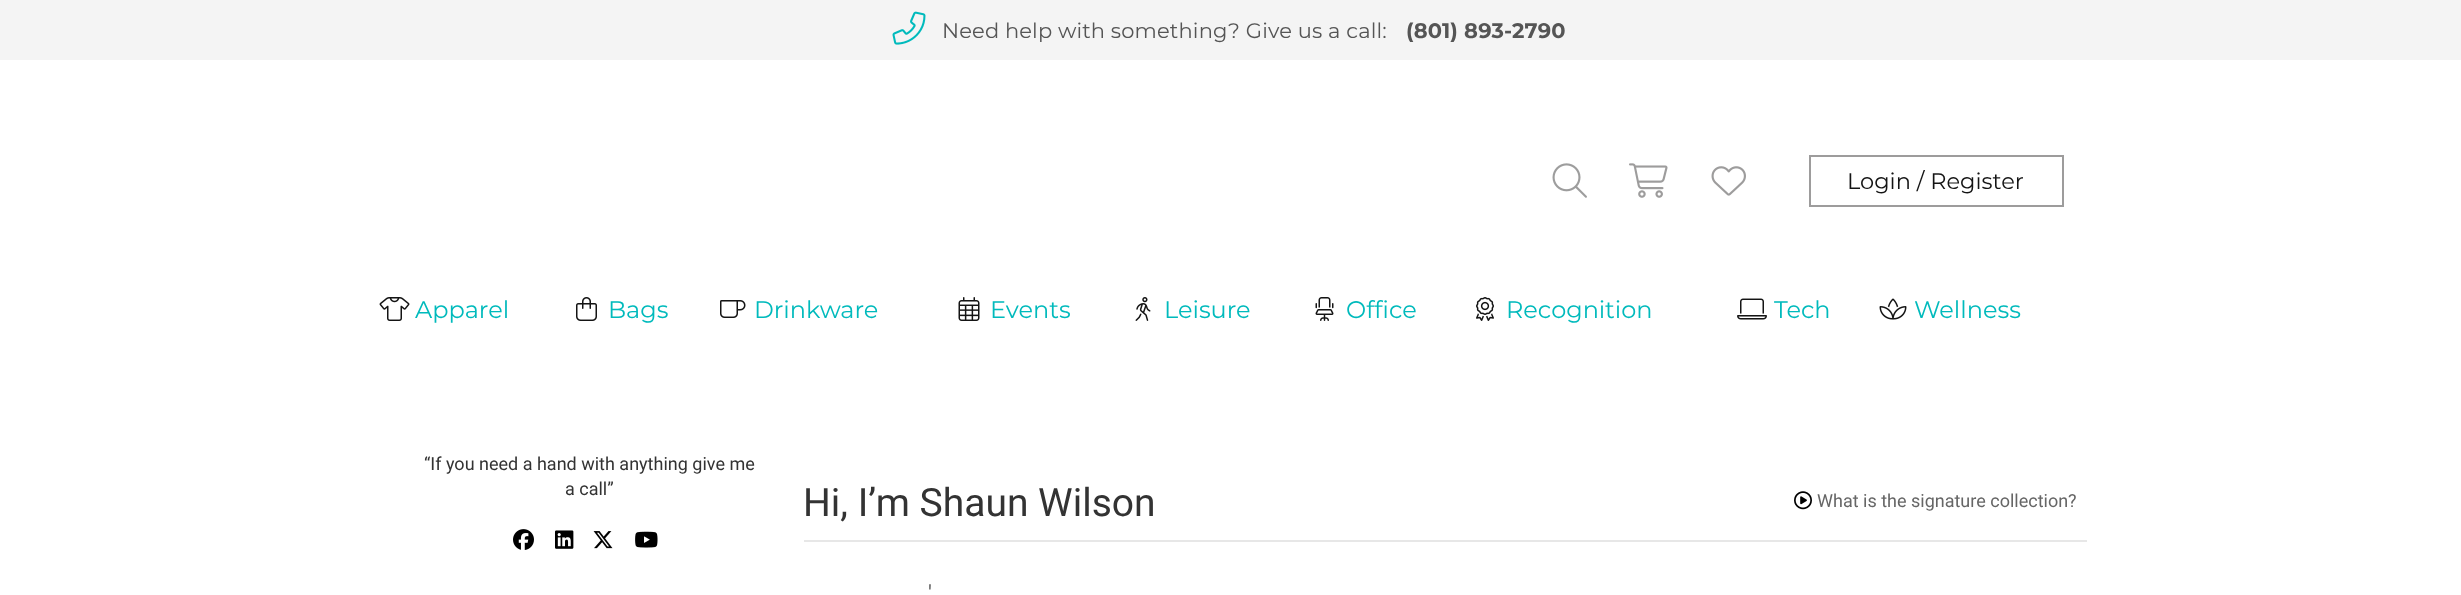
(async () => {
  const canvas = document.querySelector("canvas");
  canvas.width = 2461;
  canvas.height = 595;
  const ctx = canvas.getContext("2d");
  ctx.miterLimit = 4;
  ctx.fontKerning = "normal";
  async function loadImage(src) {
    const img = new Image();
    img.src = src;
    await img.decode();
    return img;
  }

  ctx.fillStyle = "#ffffff";
  ctx.fillRect(0, 0, 2461, 595);
  ctx.fillStyle = "#f4f4f4";
  ctx.fillRect(0, 0, 2461, 60);
  ctx.drawImage(await loadImage("img/1.png"), 892, 11, 34, 34);
  ctx.drawImage(await loadImage("img/2.png"), 1552, 163, 35, 35);
  ctx.drawImage(await loadImage("img/3.png"), 1629, 163, 39, 35);
  ctx.drawImage(await loadImage("img/4.png"), 1711, 166, 35, 30);
  ctx.strokeStyle = "#9d9c9c";
  ctx.lineWidth = 2;
  ctx.strokeRect(1810, 156, 253, 50);
  ctx.drawImage(await loadImage("img/5.png"), 379, 297, 31, 24);
  ctx.drawImage(await loadImage("img/6.png"), 576, 297, 21, 24);
  ctx.drawImage(await loadImage("img/7.png"), 720, 300, 26, 18);
  ctx.drawImage(await loadImage("img/8.png"), 958, 297, 22, 24);
  ctx.drawImage(await loadImage("img/9.png"), 1135, 297, 16, 24);
  ctx.drawImage(await loadImage("img/10.png"), 1315, 297, 19, 24);
  ctx.drawImage(await loadImage("img/11.png"), 1476, 297, 18, 24);
  ctx.drawImage(await loadImage("img/12.png"), 1737, 298, 30, 22);
  ctx.drawImage(await loadImage("img/13.png"), 1879, 298, 28, 22);
  ctx.drawImage(await loadImage("img/14.png"), 513, 529, 21, 21);
  ctx.drawImage(await loadImage("img/15.png"), 555, 530, 19, 19);
  ctx.drawImage(await loadImage("img/16.png"), 593, 531, 20, 18);
  ctx.drawImage(await loadImage("img/17.png"), 635, 531, 23, 17);
  ctx.fillStyle = "#e7e7e7";
  ctx.fillRect(804, 540, 1283, 2);
  ctx.drawImage(await loadImage("img/18.png"), 1794, 491, 18, 19);
  ctx.letterSpacing = "0.15px";
  ctx.font = "21px Montserrat";
  ctx.fillStyle = "#555555";
  ctx.fillText("Need help with something? Give us a call:", 942, 38);
  ctx.font = "bold 21px Montserrat";
  ctx.fillText("(801) 893-2790", 1406, 38);
  ctx.letterSpacing = "0px";
  ctx.font = "22.5px Montserrat";
  ctx.fillStyle = "#141414";
  ctx.fillText("Login / Register", 1847, 189);
  ctx.font = "24px Montserrat";
  ctx.fillStyle = "#00babc";
  for (const [text, x, y] of [
    ["Apparel", 415, 318],
    ["Bags", 608, 318],
    ["Drinkware", 754, 318],
    ["Events", 990, 318],
    ["Leisure", 1164, 318],
    ["Office", 1346, 318],
    ["Recognition", 1506, 318],
    ["Tech", 1774, 318],
    ["Wellness", 1914, 318],
  ]) {
    ctx.fillText(text, x, y);
  }
  ctx.font = "18px Roboto";
  ctx.fillStyle = "#333333";
  ctx.fillText("“If you need a hand with anything give me", 424, 470);
  ctx.fillText("a call”", 565, 495);
  ctx.font = "39px Roboto";
  ctx.fillText("Hi, I’m Shaun Wilson", 803, 516);
  ctx.font = "18px Roboto";
  ctx.fillStyle = "#666666";
  ctx.fillText("What is the signature collection?", 1817, 507);
  ctx.font = "22.5px Roboto";
  ctx.fillText("'", 928, 601);
})();
